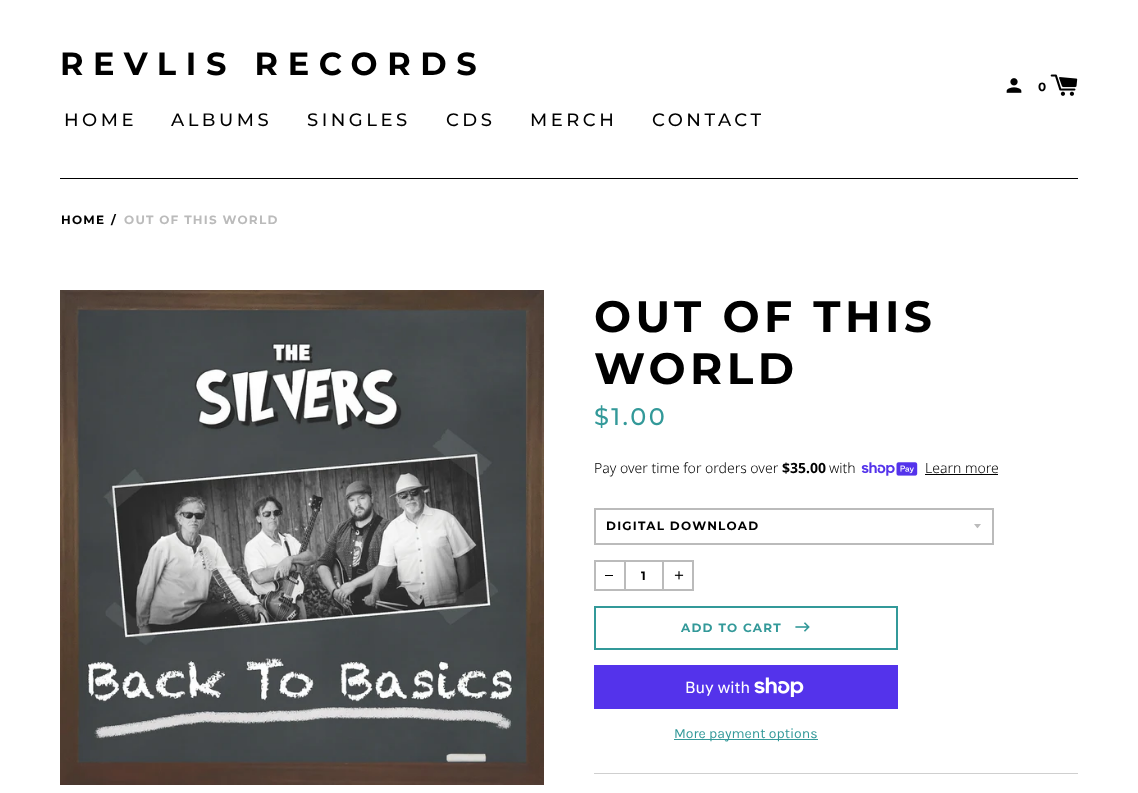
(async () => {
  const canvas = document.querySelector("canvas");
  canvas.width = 1138;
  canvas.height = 793;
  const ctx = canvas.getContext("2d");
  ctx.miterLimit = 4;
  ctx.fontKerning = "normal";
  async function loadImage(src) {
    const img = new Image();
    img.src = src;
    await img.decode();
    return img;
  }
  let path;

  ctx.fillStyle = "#ffffff";
  ctx.fillRect(0, 0, 1138, 793);
  ctx.fillStyle = "#000000";
  ctx.fillRect(60, 178, 1018, 1);
  ctx.drawImage(await loadImage("img/1.png"), 1006, 78, 16, 15);
  ctx.drawImage(await loadImage("img/2.png"), 1050, 74, 28, 22);
  ctx.drawImage(await loadImage("img/3.png"), 60, 290, 484, 495);
  ctx.drawImage(await loadImage("img/4.png"), 861, 462, 57, 14);
  ctx.fillRect(925, 474, 73, 1);
  ctx.fillStyle = "#bbbbbb";
  path = new Path2D("M974 524C978.5 529.5 976.5 529.5 981 524Z");
  ctx.fill(path);
  ctx.strokeStyle = "#bbbbbb";
  ctx.lineWidth = 2;
  ctx.strokeRect(595, 509, 398, 35);
  ctx.strokeRect(595, 561, 98, 29);
  for (const [x, y, w, h, color] of [
    [624, 560, 2, 31, "#bbbbbb"],
    [605, 575, 8, 1, "#000000"],
    [662, 560, 2, 31, "#bbbbbb"],
  ]) {
    ctx.fillStyle = color;
    ctx.fillRect(x, y, w, h);
  }
  ctx.drawImage(await loadImage("img/5.png"), 674, 571, 10, 9);
  ctx.strokeStyle = "#339999";
  ctx.strokeRect(595, 607, 302, 42);
  ctx.drawImage(await loadImage("img/6.png"), 795, 622, 15, 10);
  ctx.fillStyle = "#5433eb";
  ctx.fillRect(594, 665, 304, 44);
  ctx.drawImage(await loadImage("img/7.png"), 754, 677, 50, 20);
  ctx.fillStyle = "#339999";
  ctx.fillRect(674, 739, 144, 1);
  ctx.fillStyle = "#cfcfcf";
  ctx.fillRect(594, 773, 484, 1);
  ctx.letterSpacing = "9.6px";
  ctx.font = "bold 32px Montserrat";
  ctx.fillStyle = "#000000";
  ctx.fillText("REVLIS RECORDS", 60, 75);
  ctx.letterSpacing = "3.5px";
  ctx.font = "500 18px Montserrat";
  for (const [text, x, y] of [
    ["HOME", 64, 126],
    ["ALBUMS", 171, 126],
    ["SINGLES", 307, 126],
    ["CDS", 446, 126],
    ["MERCH", 530, 126],
    ["CONTACT", 652, 126],
  ]) {
    ctx.fillText(text, x, y);
  }
  ctx.letterSpacing = "0px";
  ctx.font = "bold 12px Montserrat";
  ctx.fillText("0", 1038, 91);
  ctx.letterSpacing = "1.25px";
  ctx.fillText("HOME", 61, 224);
  ctx.fillText("/", 111, 224);
  ctx.fillStyle = "#bbbbbb";
  ctx.fillText("OUT OF THIS WORLD", 124, 224);
  ctx.letterSpacing = "4.4px";
  ctx.font = "bold 44px Montserrat";
  ctx.fillStyle = "#000000";
  ctx.fillText("OUT OF THIS", 594, 332);
  ctx.fillText("WORLD", 594, 384);
  ctx.letterSpacing = "2.5px";
  ctx.font = "500 24px Montserrat";
  ctx.fillStyle = "#339999";
  ctx.fillText("$1.00", 594, 425);
  ctx.letterSpacing = "0px";
  ctx.font = "300 14px Noto Sans";
  ctx.fillStyle = "#000000";
  ctx.fillText("Pay over time for orders over", 594, 473);
  ctx.font = "bold 14px Noto Sans";
  ctx.fillText("$35.00", 782, 473);
  ctx.font = "300 14px Noto Sans";
  ctx.fillText("with", 829, 473);
  ctx.fillText("Learn more", 925, 473);
  ctx.letterSpacing = "1.25px";
  ctx.font = "bold 12px Montserrat";
  ctx.fillText("DIGITAL DOWNLOAD", 606, 530);
  ctx.fillText("1", 641, 580);
  ctx.fillStyle = "#339999";
  ctx.fillText("ADD TO CART", 681, 632);
  ctx.letterSpacing = "0px";
  ctx.font = "16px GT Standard";
  ctx.fillStyle = "#ffffff";
  ctx.fillText("Buy with", 685, 693);
  ctx.font = "14px Karla";
  ctx.fillStyle = "#339999";
  ctx.fillText("More payment options", 674, 738);
})();
